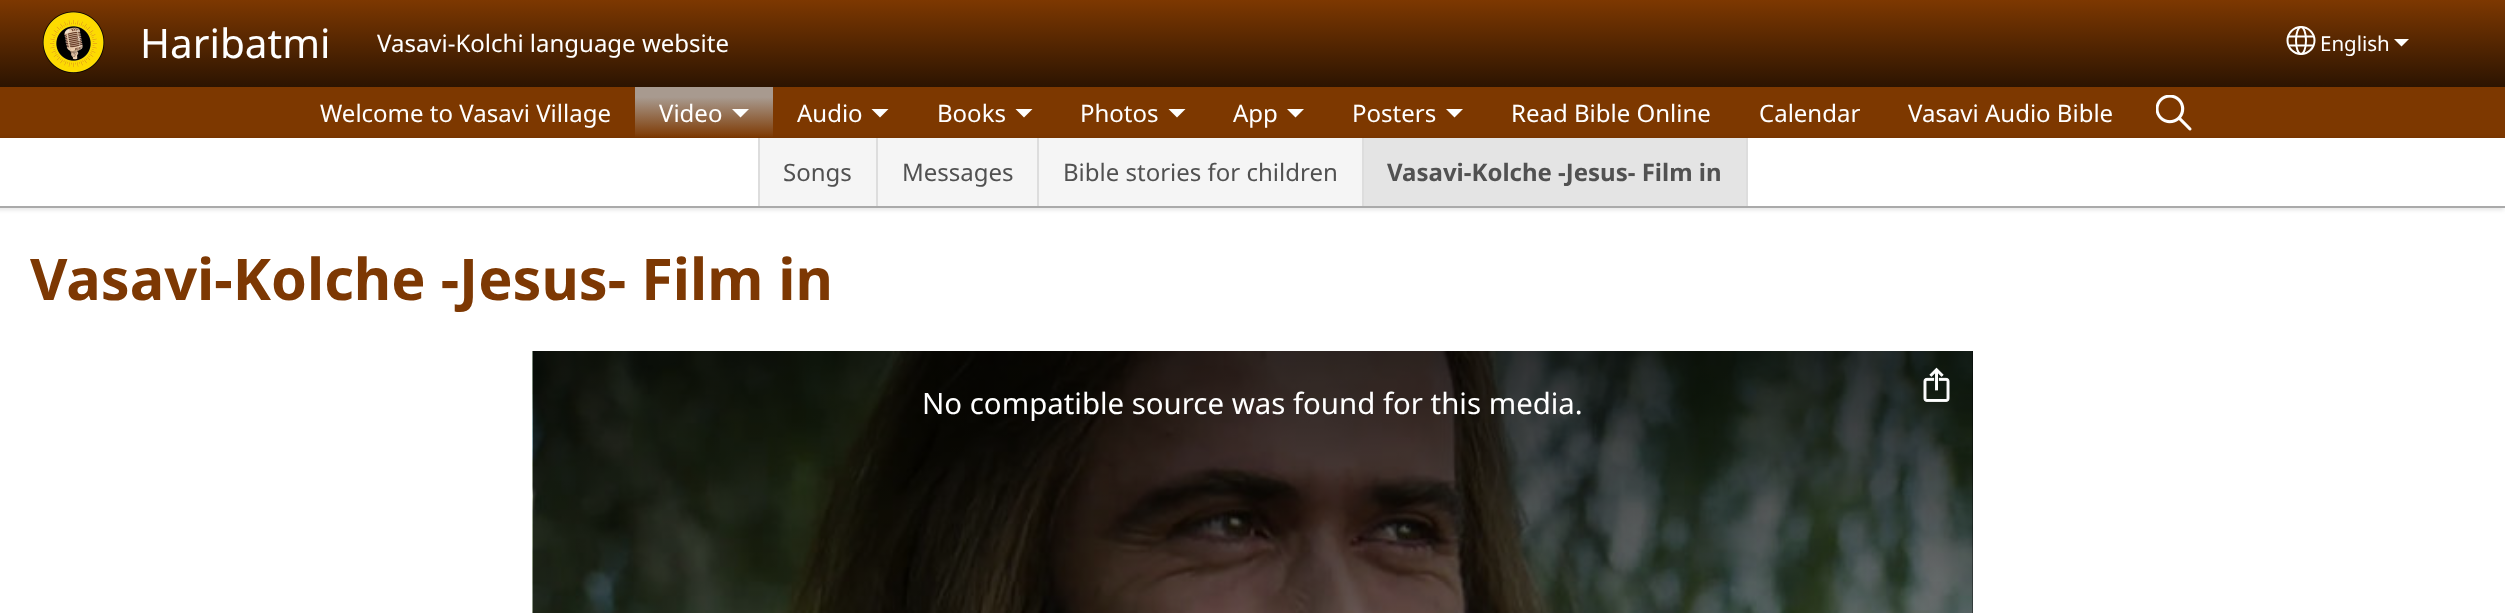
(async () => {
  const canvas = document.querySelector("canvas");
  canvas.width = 2505;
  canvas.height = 613;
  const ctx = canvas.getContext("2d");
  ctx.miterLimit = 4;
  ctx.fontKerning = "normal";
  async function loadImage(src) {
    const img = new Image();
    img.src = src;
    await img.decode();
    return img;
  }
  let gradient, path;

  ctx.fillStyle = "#ffffff";
  ctx.fillRect(0, 0, 2505, 613);
  gradient = ctx.createLinearGradient(1253, 0, 1253, 87);
  gradient.addColorStop(0, "#7d3801");
  gradient.addColorStop(1, "#2c1401");
  ctx.fillStyle = gradient;
  ctx.fillRect(0, 0, 2505, 87);
  ctx.drawImage(await loadImage("img/1.png"), 42, 11, 63, 62);
  ctx.beginPath();
  ctx.arc(2301, 40.5, 13.5, 0, Math.PI * 2);
  ctx.strokeStyle = "#fffffe";
  ctx.lineWidth = 2;
  ctx.stroke();
  ctx.beginPath();
  ctx.ellipse(2301, 40.5, 5, 13.5, 0, 0, Math.PI * 2);
  ctx.stroke();
  path = new Path2D("M2288 45.5H2314M2288 36.5H2314");
  ctx.stroke(path);
  ctx.fillStyle = "#fffffe";
  path = new Path2D("M2394 39H2409L2401.5 46.5Z");
  ctx.fill(path);
  ctx.fillStyle = "#7d3800";
  ctx.fillRect(0, 87, 2505, 51);
  gradient = ctx.createLinearGradient(704, 87, 704, 138);
  gradient.addColorStop(0.2, "#a89a8f");
  gradient.addColorStop(1, "#7d3800");
  ctx.fillStyle = gradient;
  ctx.fillRect(635, 87, 138, 50);
  ctx.fillStyle = "#feffff";
  path = new Path2D("M732 109H749L740.5 117.5Z");
  ctx.fill(path);
  ctx.save();
  path = new Path2D("M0 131H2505V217H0ZM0 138H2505V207H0Z");
  ctx.clip(path, "evenodd");
  ctx.fillStyle = "rgba(0, 0, 0, 0.1)";
  ctx.filter = "blur(2px)";
  ctx.beginPath();
  ctx.rect(-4, 138, 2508, 72);
  ctx.fill();
  ctx.filter = "none";
  ctx.restore();
  for (const [x, y, w, h, color] of [
    [0, 206, 2505, 2, "#aaaaaa"],
    [760, 138, 116, 68, "#f5f5f5"],
    [758, 138, 2, 68, "#dddddd"],
    [878, 138, 159, 68, "#f5f5f5"],
    [876, 138, 2, 68, "#dddddd"],
    [1039, 138, 323, 68, "#f5f5f5"],
    [1037, 138, 2, 68, "#dddddd"],
    [1364, 138, 382, 68, "#e4e4e4"],
    [1746, 138, 2, 68, "#dddddd"],
    [1362, 138, 2, 68, "#dddddd"],
  ]) {
    ctx.fillStyle = color;
    ctx.fillRect(x, y, w, h);
  }
  ctx.drawImage(await loadImage("img/2.png"), 2156, 95, 36, 36);
  ctx.fillStyle = "#feffff";
  path = new Path2D("M871.5 109H888.5L880 117.5Z");
  ctx.fill(path);
  path = new Path2D("M1015.5 109H1032.5L1024 117.5Z");
  ctx.fill(path);
  path = new Path2D("M1168.5 109H1185.5L1177 117.5Z");
  ctx.fill(path);
  path = new Path2D("M1287 109H1304L1295.5 117.5Z");
  ctx.fill(path);
  path = new Path2D("M1446 109H1463L1454.5 117.5Z");
  ctx.fill(path);
  ctx.fillStyle = "#000000";
  ctx.fillRect(1972, 351, 1, 262);
  ctx.drawImage(await loadImage("img/3.png"), 532, 351, 1441, 262);
  ctx.drawImage(await loadImage("img/4.png"), 532, 351, 1441, 262);
  gradient = ctx.createLinearGradient(1253, 351, 1253, 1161);
  gradient.addColorStop(0, "rgba(0, 0, 0, 0.8)");
  gradient.addColorStop(1, "rgba(0, 0, 0, 0)");
  ctx.fillStyle = gradient;
  ctx.fillRect(533, 351, 1440, 262);
  ctx.drawImage(await loadImage("img/5.png"), 1923, 367, 27, 35);
  ctx.font = "40.5px Noto Sans";
  ctx.fillStyle = "#ffffff";
  ctx.fillText("Haribatmi", 140, 58);
  ctx.font = "24px Noto Sans";
  ctx.fillText("Vasavi-Kolchi language website", 377, 52);
  ctx.font = "20.5px Noto Sans";
  ctx.fillText("English", 2320, 51);
  ctx.font = "24px Noto Sans";
  ctx.fillText("Welcome to Vasavi Village", 320, 122);
  ctx.fillText("Video", 659, 122);
  ctx.fillStyle = "#515151";
  for (const [text, x, y] of [
    ["Songs", 783, 181],
    ["Messages", 902, 181],
    ["Bible stories for children", 1063, 181],
  ]) {
    ctx.fillText(text, x, y);
  }
  ctx.font = "bold 24px Noto Sans";
  ctx.fillText("Vasavi-Kolche -Jesus- Film in", 1387, 181);
  ctx.font = "24px Noto Sans";
  ctx.fillStyle = "#ffffff";
  for (const [text, x, y] of [
    ["Audio", 797, 122],
    ["Books", 937, 122],
    ["Photos", 1080, 122],
    ["App", 1233, 122],
    ["Posters", 1352, 122],
    ["Read Bible Online", 1511, 122],
    ["Calendar", 1759, 122],
    ["Vasavi Audio Bible", 1908, 122],
  ]) {
    ctx.fillText(text, x, y);
  }
  ctx.font = "bold 57.6px Noto Sans";
  ctx.fillStyle = "#7d3803";
  ctx.fillText("Vasavi-Kolche -Jesus- Film in", 30, 300);
  ctx.font = "29.4px Noto Sans";
  ctx.fillStyle = "#ffffff";
  ctx.fillText("No compatible source was found for this media.", 922, 414);
})();
